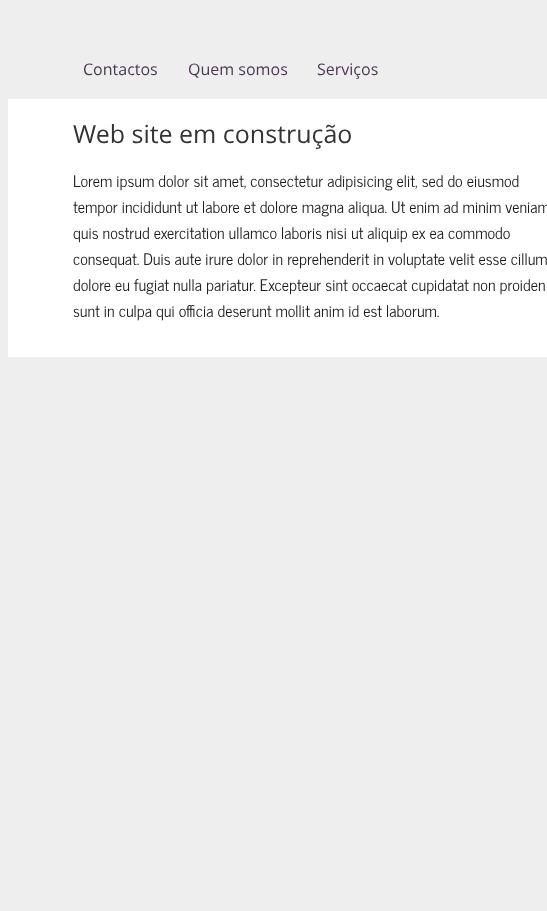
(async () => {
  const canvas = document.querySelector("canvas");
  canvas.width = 547;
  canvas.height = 911;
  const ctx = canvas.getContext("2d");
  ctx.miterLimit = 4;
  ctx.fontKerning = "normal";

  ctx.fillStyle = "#eeeeee";
  ctx.fillRect(0, 0, 547, 911);
  ctx.fillStyle = "#ffffff";
  ctx.fillRect(8, 99, 539, 258);
  ctx.font = "16px Open Sans";
  ctx.fillStyle = "#4d3752";
  for (const [text, x, y] of [
    ["Contactos", 83, 75],
    ["Quem somos", 188, 75],
    ["Serviços", 317, 75],
  ]) {
    ctx.fillText(text, x, y);
  }
  ctx.font = "25px Open Sans";
  ctx.fillStyle = "#333333";
  ctx.fillText("Web site em construção", 73, 143);
  ctx.font = "16px News Cycle";
  ctx.fillStyle = "#1a1a1a";
  for (const [text, x, y] of [
    ["Lorem ipsum dolor sit amet, consectetur adipisicing elit, sed do eiusmod", 73, 187],
    ["tempor incididunt ut labore et dolore magna aliqua. Ut enim ad minim veniam", 73, 213],
    ["quis nostrud exercitation ullamco laboris nisi ut aliquip ex ea commodo", 73, 239],
    ["consequat. Duis aute irure dolor in reprehenderit in voluptate velit esse cillum", 73, 265],
    ["dolore eu fugiat nulla pariatur. Excepteur sint occaecat cupidatat non proiden", 73, 291],
    ["sunt in culpa qui officia deserunt mollit anim id est laborum.", 73, 317],
  ]) {
    ctx.fillText(text, x, y);
  }
})();
